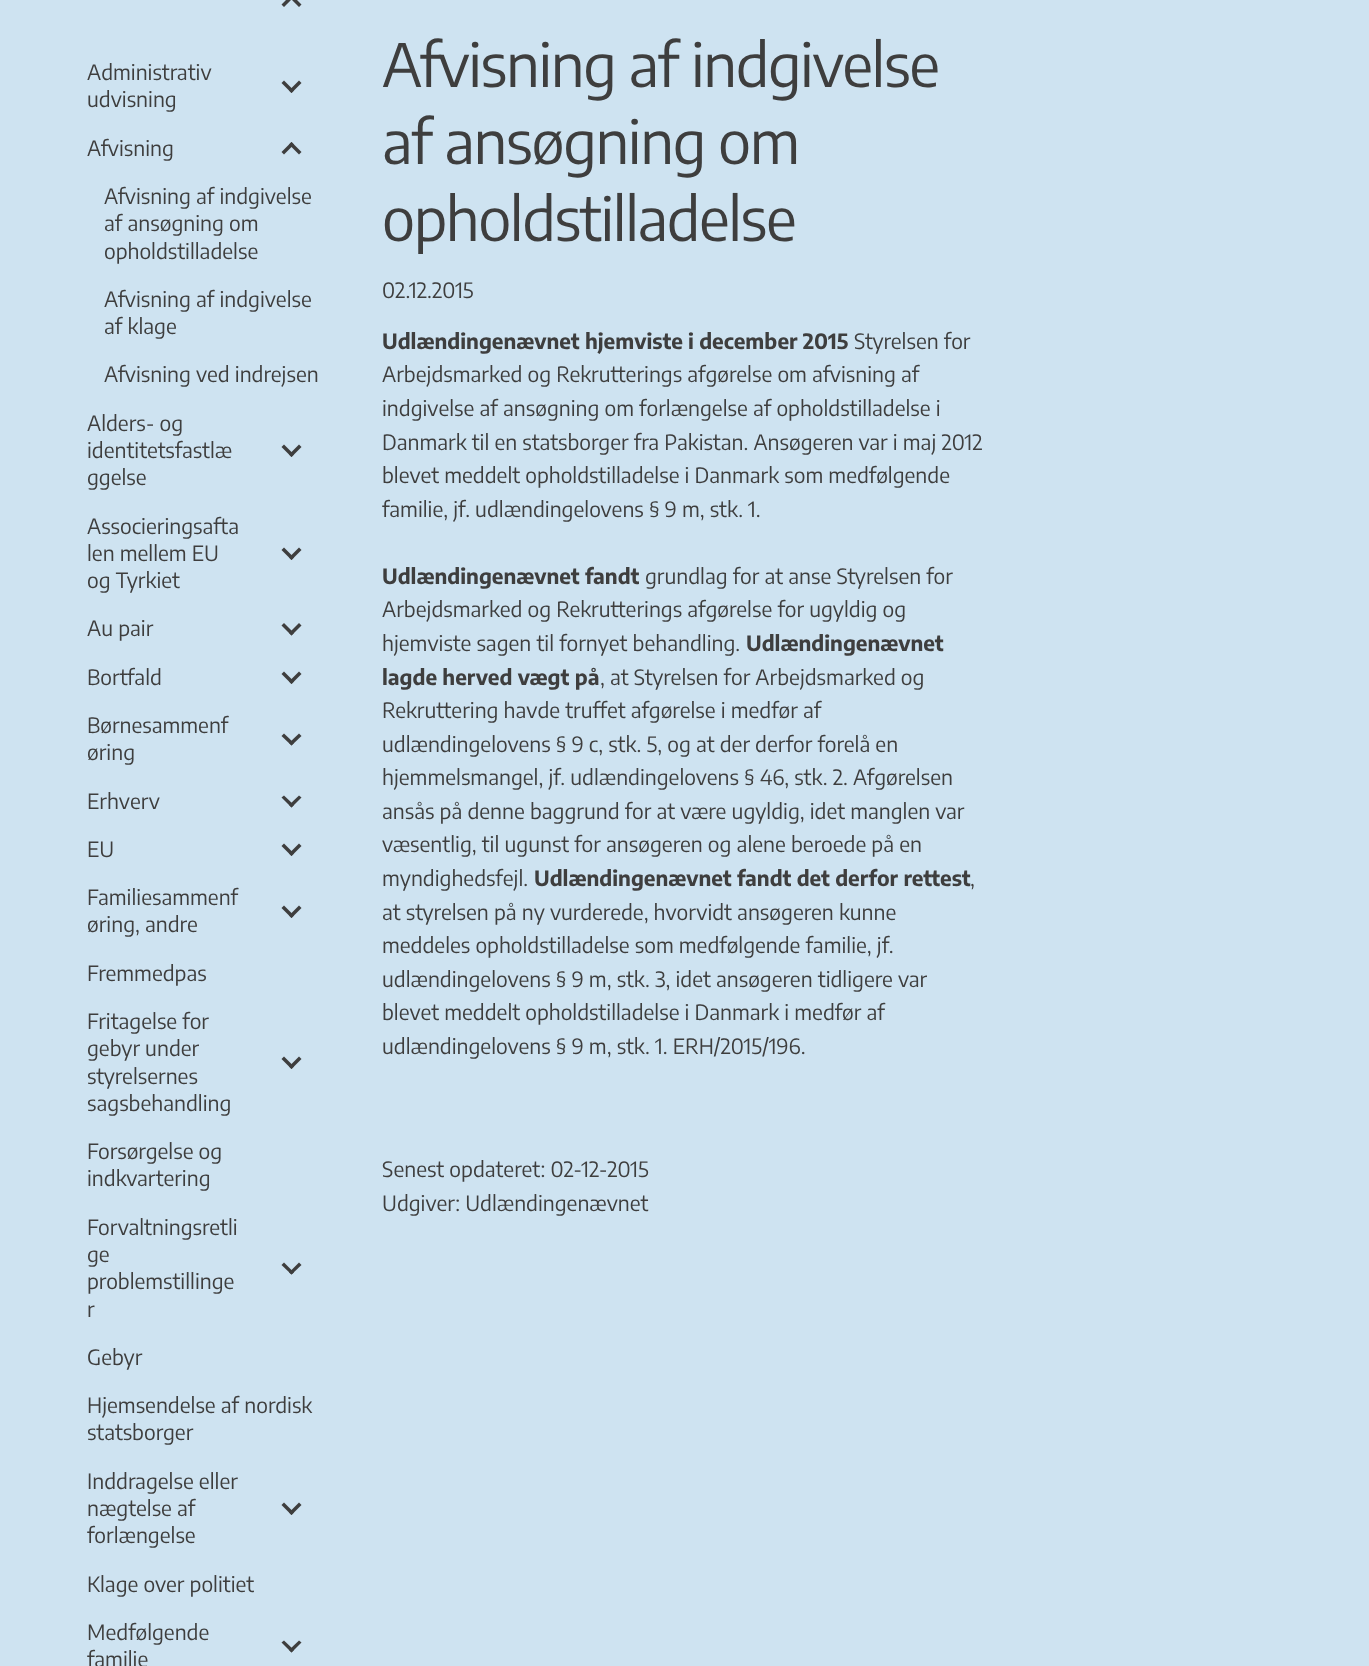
(async () => {
  const canvas = document.querySelector("canvas");
  canvas.width = 1369;
  canvas.height = 1666;
  const ctx = canvas.getContext("2d");
  ctx.miterLimit = 4;
  ctx.fontKerning = "normal";
  let path;

  ctx.fillStyle = "#ffffff";
  ctx.fillRect(0, 0, 1369, 1666);
  ctx.strokeStyle = "#cee3f1";
  ctx.lineWidth = 35;
  ctx.strokeRect(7.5, -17.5, 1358, 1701);
  ctx.fillStyle = "#cee3f1";
  ctx.fillRect(25, 0, 1323, 1666);
  ctx.fillStyle = "#3e3e3e";
  path = new Path2D("M284 7L281.5 4.5L291.5-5.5L294-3ZM299 7L289-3L291.5-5.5L301.5 4.5Z");
  ctx.fill(path);
  path = new Path2D("M299 80.5L301.5 83L291.5 93L289 90.5Z");
  ctx.fill(path);
  path = new Path2D("M284 80.5L294 90.5L291.5 93L281.5 83Z");
  ctx.fill(path);
  path = new Path2D("M284 154.5L281.5 152L291.5 142L294 144.5Z");
  ctx.fill(path);
  path = new Path2D("M299 154.5L289 144.5L291.5 142L301.5 152Z");
  ctx.fill(path);
  path = new Path2D("M299 444.5L301.5 447L291.5 457L289 454.5Z");
  ctx.fill(path);
  path = new Path2D("M284 444.5L294 454.5L291.5 457L281.5 447Z");
  ctx.fill(path);
  path = new Path2D("M299 547.5L301.5 550L291.5 560L289 557.5Z");
  ctx.fill(path);
  path = new Path2D("M284 547.5L294 557.5L291.5 560L281.5 550Z");
  ctx.fill(path);
  path = new Path2D("M299 623L301.5 625.5L291.5 635.5L289 633Z");
  ctx.fill(path);
  path = new Path2D("M284 623L294 633L291.5 635.5L281.5 625.5Z");
  ctx.fill(path);
  path = new Path2D("M299 671.5L301.5 674L291.5 684L289 681.5Z");
  ctx.fill(path);
  path = new Path2D("M284 671.5L294 681.5L291.5 684L281.5 674Z");
  ctx.fill(path);
  path = new Path2D("M299 733.5L301.5 736L291.5 745.5L289 743Z");
  ctx.fill(path);
  path = new Path2D("M284 733.5L294 743L291.5 745.5L281.5 736Z");
  ctx.fill(path);
  path = new Path2D("M299 795.5L301.5 797.5L291.5 807.5L289 805Z");
  ctx.fill(path);
  path = new Path2D("M284 795.5L294 805L291.5 807.5L281.5 797.5Z");
  ctx.fill(path);
  path = new Path2D("M299 843.5L301.5 846L291.5 856L289 853.5Z");
  ctx.fill(path);
  path = new Path2D("M284 843.5L294 853.5L291.5 856L281.5 846Z");
  ctx.fill(path);
  path = new Path2D("M299 905.5L301.5 908L291.5 918L289 915.5Z");
  ctx.fill(path);
  path = new Path2D("M284 905.5L294 915.5L291.5 918L281.5 908Z");
  ctx.fill(path);
  path = new Path2D("M299 1056.5L301.5 1059L291.5 1069L289 1066.5Z");
  ctx.fill(path);
  path = new Path2D("M284 1056.5L294 1066.5L291.5 1069L281.5 1059Z");
  ctx.fill(path);
  path = new Path2D("M299 1262.5L301.5 1265L291.5 1274.5L289 1272.5Z");
  ctx.fill(path);
  path = new Path2D("M284 1262.5L294 1272.5L291.5 1274.5L281.5 1265Z");
  ctx.fill(path);
  path = new Path2D("M299 1502.5L301.5 1505L291.5 1515L289 1512.5Z");
  ctx.fill(path);
  path = new Path2D("M284 1502.5L294 1512.5L291.5 1515L281.5 1505Z");
  ctx.fill(path);
  path = new Path2D("M299 1640.5L301.5 1642.5L291.5 1652.5L289 1650Z");
  ctx.fill(path);
  path = new Path2D("M284 1640.5L294 1650L291.5 1652.5L281.5 1642.5Z");
  ctx.fill(path);
  ctx.font = "21px Encode Sans";
  for (const [text, x, y] of [
    ["Administrativ", 87, 80],
    ["udvisning", 87, 107],
    ["Afvisning", 87, 156],
    ["Afvisning af indgivelse", 104, 204],
    ["af ansøgning om", 104, 231],
    ["opholdstilladelse", 104, 259],
    ["Afvisning af indgivelse", 104, 307],
    ["af klage", 104, 334],
    ["Afvisning ved indrejsen", 104, 382],
    ["Alders- og", 87, 431],
    ["identitetsfastlæ", 87, 458],
    ["ggelse", 87, 485],
    ["Associeringsafta", 87, 534],
    ["len mellem EU", 87, 561],
    ["og Tyrkiet", 87, 588],
    ["Au pair", 87, 636],
    ["Bortfald", 87, 685],
    ["Børnesammenf", 87, 733],
    ["øring", 87, 760],
    ["Erhverv", 87, 809],
    ["EU", 87, 857],
    ["Familiesammenf", 87, 905],
    ["øring, andre", 87, 932],
    ["Fremmedpas", 87, 981],
    ["Fritagelse for", 87, 1029],
    ["gebyr under", 87, 1056],
    ["styrelsernes", 87, 1084],
    ["sagsbehandling", 87, 1111],
    ["Forsørgelse og", 87, 1159],
    ["indkvartering", 87, 1186],
    ["Forvaltningsretli", 87, 1235],
    ["ge", 87, 1262],
    ["problemstillinge", 87, 1289],
    ["r", 87, 1317],
    ["Gebyr", 87, 1365],
    ["Hjemsendelse af nordisk", 87, 1413],
    ["statsborger", 87, 1440],
    ["Inddragelse eller", 87, 1489],
    ["nægtelse af", 87, 1516],
    ["forlængelse", 87, 1543],
    ["Klage over politiet", 87, 1592],
    ["Medfølgende", 87, 1640],
    ["familie", 87, 1667],
  ]) {
    ctx.fillText(text, x, y);
  }
  ctx.letterSpacing = "-1.4px";
  ctx.font = "59.5px Encode Sans";
  for (const [text, x, y] of [
    ["Afvisning af indgivelse", 382, 87],
    ["af ansøgning om", 382, 164],
    ["opholdstilladelse", 382, 241],
  ]) {
    ctx.fillText(text, x, y);
  }
  ctx.letterSpacing = "0px";
  ctx.font = "21px Encode Sans";
  ctx.fillText("02.12.2015", 382, 298);
  ctx.font = "bold 21px Encode Sans";
  ctx.fillText("Udlændingenævnet hjemviste i december 2015", 382, 349);
  ctx.font = "21px Encode Sans";
  for (const [text, x, y] of [
    ["Styrelsen for", 854, 349],
    ["Arbejdsmarked og Rekrutterings afgørelse om afvisning af", 382, 382],
    ["indgivelse af ansøgning om forlængelse af opholdstilladelse i", 382, 416],
    ["Danmark til en statsborger fra Pakistan. Ansøgeren var i maj 2012", 382, 450],
    ["blevet meddelt opholdstilladelse i Danmark som medfølgende", 382, 483],
    ["familie, jf. udlændingelovens § 9 m, stk. 1.", 382, 517],
  ]) {
    ctx.fillText(text, x, y);
  }
  ctx.font = "bold 21px Encode Sans";
  ctx.fillText("Udlændingenævnet fandt", 382, 584);
  ctx.font = "21px Encode Sans";
  for (const [text, x, y] of [
    ["grundlag for at anse Styrelsen for", 645, 584],
    ["Arbejdsmarked og Rekrutterings afgørelse for ugyldig og", 382, 617],
    ["hjemviste sagen til fornyet behandling.", 382, 651],
  ]) {
    ctx.fillText(text, x, y);
  }
  ctx.font = "bold 21px Encode Sans";
  ctx.fillText("Udlændingenævnet", 746, 651);
  ctx.fillText("lagde herved vægt på", 382, 685);
  ctx.font = "21px Encode Sans";
  for (const [text, x, y] of [
    [", at Styrelsen for Arbejdsmarked og", 600, 685],
    ["Rekruttering havde truffet afgørelse i medfør af", 382, 718],
    ["udlændingelovens § 9 c, stk. 5, og at der derfor forelå en", 382, 752],
    ["hjemmelsmangel, jf. udlændingelovens § 46, stk. 2. Afgørelsen", 382, 785],
    ["ansås på denne baggrund for at være ugyldig, idet manglen var", 382, 819],
    ["væsentlig, til ugunst for ansøgeren og alene beroede på en", 382, 852],
    ["myndighedsfejl.", 382, 886],
  ]) {
    ctx.fillText(text, x, y);
  }
  ctx.font = "bold 21px Encode Sans";
  ctx.fillText("Udlændingenævnet fandt det derfor rettest", 534, 886);
  ctx.font = "21px Encode Sans";
  for (const [text, x, y] of [
    [",", 970, 886],
    ["at styrelsen på ny vurderede, hvorvidt ansøgeren kunne", 382, 920],
    ["meddeles opholdstilladelse som medfølgende familie, jf.", 382, 953],
    ["udlændingelovens § 9 m, stk. 3, idet ansøgeren tidligere var", 382, 987],
    ["blevet meddelt opholdstilladelse i Danmark i medfør af", 382, 1020],
    ["udlændingelovens § 9 m, stk. 1. ERH/2015/196.", 382, 1054],
    ["Senest opdateret: 02-12-2015", 382, 1177],
    ["Udgiver: Udlændingenævnet", 382, 1211],
  ]) {
    ctx.fillText(text, x, y);
  }
})();
